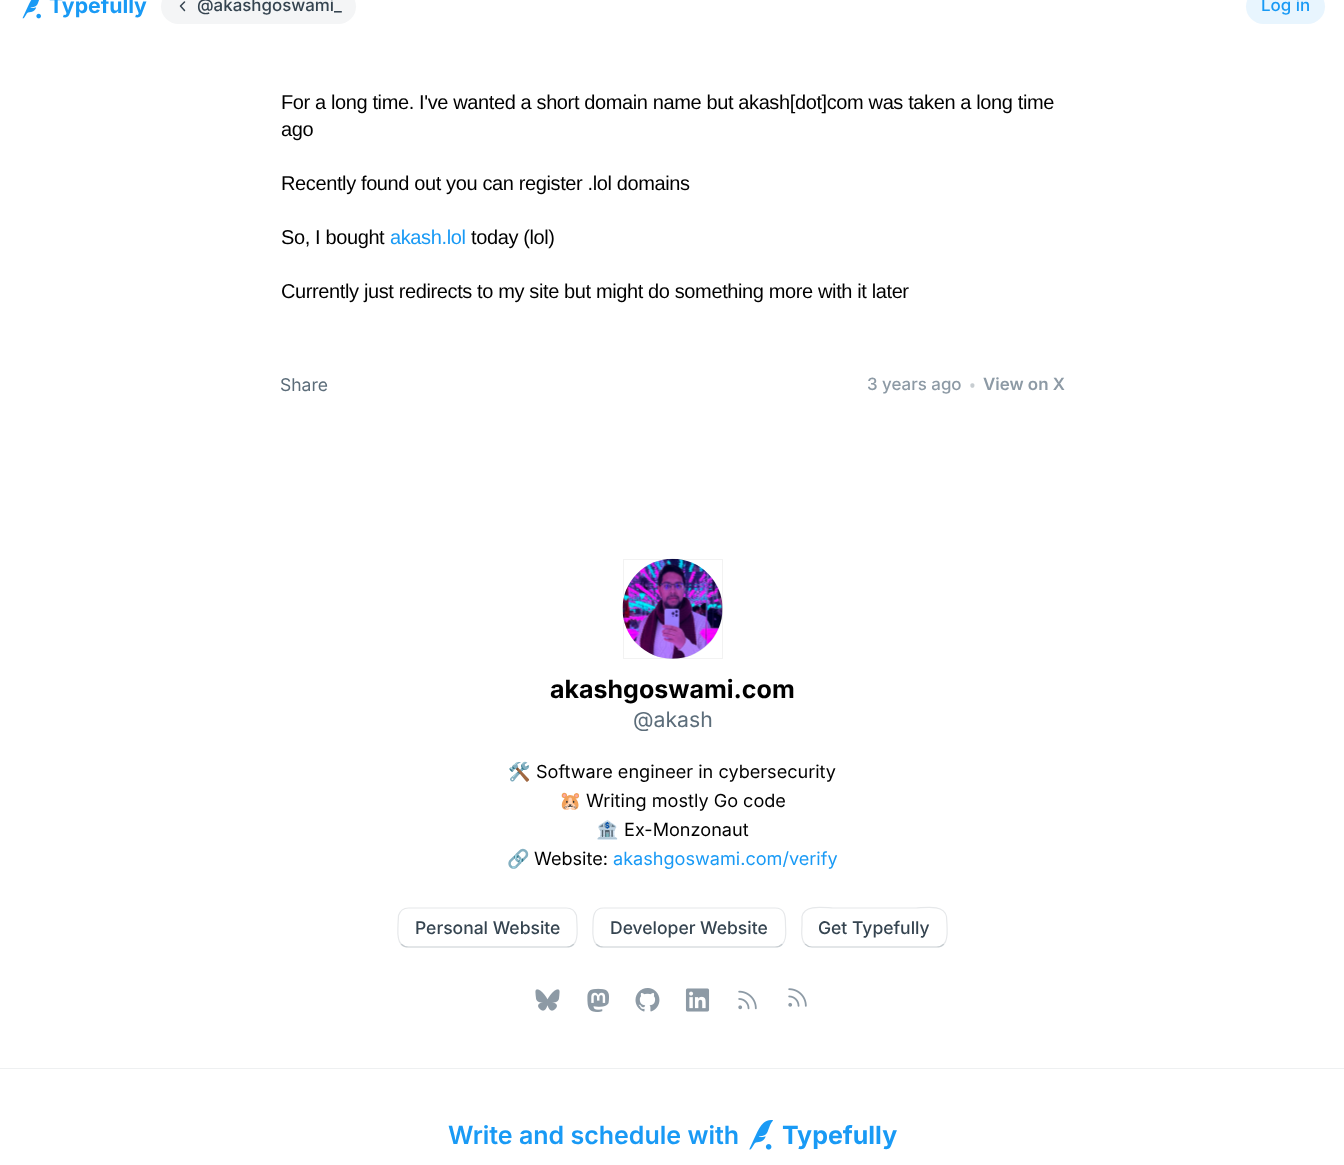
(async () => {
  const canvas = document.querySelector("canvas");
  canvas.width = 1344;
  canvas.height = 1165;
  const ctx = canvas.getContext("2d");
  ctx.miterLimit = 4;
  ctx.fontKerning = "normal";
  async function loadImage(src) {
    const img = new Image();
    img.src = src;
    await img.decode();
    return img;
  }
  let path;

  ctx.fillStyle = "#ffffff";
  ctx.fillRect(0, 0, 1344, 1165);
  ctx.drawImage(await loadImage("img/1.png"), 22, 0, 19, 19);
  ctx.fillStyle = "#f4f5f6";
  ctx.beginPath();
  ctx.roundRect(161, -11, 195, 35, 17.5);
  ctx.fill();
  path = new Path2D("M184.5 10.5L180.5 6L184.5 2");
  ctx.strokeStyle = "#354450";
  ctx.lineWidth = 1.5;
  ctx.lineCap = "round";
  ctx.lineJoin = "round";
  ctx.stroke(path);
  ctx.fillStyle = "#e8f5fe";
  ctx.beginPath();
  ctx.roundRect(1246, -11, 79, 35, 17.5);
  ctx.fill();
  ctx.fillStyle = "#e6e8ea";
  ctx.beginPath();
  ctx.arc(673, 609, 50, 0, Math.PI * 2);
  ctx.fill();
  ctx.drawImage(await loadImage("img/2.png"), 622, 558, 101, 101);
  ctx.strokeStyle = "rgba(0, 0, 0, 0.05)";
  ctx.lineWidth = 1;
  ctx.lineJoin = "miter";
  ctx.strokeRect(623.5, 559.5, 99, 99);
  path = new Path2D("M574 944C572 946 569.5 947 566.5 947H408.5C405.5 947 403 946 401 944");
  ctx.strokeStyle = "#c7cdd1";
  ctx.lineWidth = 1.2;
  ctx.lineCap = "butt";
  ctx.stroke(path);
  path = new Path2D("M401 944C396.5 939 398 930.5 398 924.5L398.5 915.5C400 911 404 908 408.5 908H566.5C571 908 575 911 576.5 915.5L577 924.5C577 930.5 578.5 939 574 944");
  ctx.strokeStyle = "#e6e8ea";
  ctx.stroke(path);
  path = new Path2D("M782.5 944C780.5 946 778 947 775 947H603.5C600.5 947 598 946 596 944");
  ctx.strokeStyle = "#c7cdd1";
  ctx.stroke(path);
  path = new Path2D("M596 944C591.5 939 593 930.5 593 924.5C593 917 593.5 908 603.5 908H775C785.5 908 785.5 917 785.5 924.5C785.5 930.5 787.5 939 782.5 944");
  ctx.strokeStyle = "#e6e8ea";
  ctx.stroke(path);
  path = new Path2D("M944 944C942 946 939.5 947 936.5 947H812C809.5 947 807 946 805 944");
  ctx.strokeStyle = "#c7cdd1";
  ctx.stroke(path);
  path = new Path2D("M805 944C800 939 802 930.5 802 924.5V916.5C804.5 903.5 826 908 833 908H916C923 908 944 903.5 946.5 916.5L947 924.5C947 930.5 948.5 939 944 944");
  ctx.strokeStyle = "#e6e8ea";
  ctx.stroke(path);
  ctx.drawImage(await loadImage("img/3.png"), 535, 989, 25, 22);
  ctx.drawImage(await loadImage("img/4.png"), 587, 988, 22, 24);
  ctx.drawImage(await loadImage("img/5.png"), 635, 988, 25, 24);
  ctx.drawImage(await loadImage("img/6.png"), 685, 988, 25, 24);
  ctx.drawImage(await loadImage("img/7.png"), 738, 990, 19, 20);
  ctx.drawImage(await loadImage("img/8.png"), 788, 988, 19, 19);
  ctx.fillStyle = "#eef0f1";
  ctx.fillRect(0, 1068, 1344, 1);
  ctx.drawImage(await loadImage("img/9.png"), 749, 1120, 24, 30);
  ctx.font = "bold 21.25px Inter";
  ctx.fillStyle = "#199af5";
  ctx.fillText("Typefully", 49, 13);
  ctx.font = "500 16.9px Inter";
  ctx.fillStyle = "#354450";
  ctx.fillText("@akashgoswami_", 197, 11);
  ctx.fillStyle = "#199af5";
  ctx.fillText("Log in", 1261, 11);
  ctx.letterSpacing = "-0.38px";
  ctx.font = "20px Liberation Sans";
  ctx.fillStyle = "#000000";
  for (const [text, x, y] of [
    ["For a long time. I've wanted a short domain name but akash[dot]com was taken a long time", 281, 109],
    ["ago", 281, 136],
    ["Recently found out you can register .lol domains", 281, 190],
    ["So, I bought", 281, 244],
  ]) {
    ctx.fillText(text, x, y);
  }
  ctx.fillStyle = "#199af5";
  ctx.fillText("akash.lol", 390, 244);
  ctx.fillStyle = "#000000";
  ctx.fillText("today (lol)", 471, 244);
  ctx.fillText("Currently just redirects to my site but might do something more with it later", 281, 298);
  ctx.letterSpacing = "0px";
  ctx.font = "17.5px Inter";
  ctx.fillStyle = "#5c6d7a";
  ctx.fillText("Share", 280, 391);
  ctx.font = "500 16.9px Inter";
  ctx.fillStyle = "#8d9aa5";
  ctx.fillText("3 years ago", 867, 390);
  ctx.font = "18.1px Noto Sans";
  ctx.fillStyle = "#c7cdd1";
  ctx.fillText("•", 969, 392);
  ctx.font = "600 16.9px Inter";
  ctx.fillStyle = "#8d9aa5";
  ctx.fillText("View on X", 983, 390);
  ctx.font = "bold 25px Inter";
  ctx.fillStyle = "#000000";
  ctx.fillText("akashgoswami.com", 550, 698);
  ctx.font = "21.25px Inter";
  ctx.fillStyle = "#5c6d7a";
  ctx.fillText("@akash", 633, 727);
  ctx.font = "18.1px Noto Color Emoji";
  ctx.fillStyle = "#000000";
  ctx.fillText("🛠️", 508, 778);
  ctx.font = "18.1px Inter";
  ctx.fillText("Software engineer in cybersecurity", 536, 778);
  ctx.font = "18.1px Noto Color Emoji";
  ctx.fillText("🐹", 559, 807);
  ctx.font = "18.1px Inter";
  ctx.fillText("Writing mostly Go code", 586, 807);
  ctx.font = "18.1px Noto Color Emoji";
  ctx.fillText("🏦", 596, 836);
  ctx.font = "18.1px Inter";
  ctx.fillText("Ex-Monzonaut", 624, 836);
  ctx.font = "18.1px Noto Color Emoji";
  ctx.fillText("🔗", 507, 865);
  ctx.font = "18.1px Inter";
  ctx.fillText("Website:", 534, 865);
  ctx.fillStyle = "#199af5";
  ctx.fillText("akashgoswami.com/verify", 613, 865);
  ctx.font = "500 17.5px Inter";
  ctx.fillStyle = "#354450";
  for (const [text, x, y] of [
    ["Personal Website", 415, 934],
    ["Developer Website", 610, 934],
    ["Get Typefully", 818, 934],
  ]) {
    ctx.fillText(text, x, y);
  }
  ctx.font = "600 25px Inter";
  ctx.fillStyle = "#199af5";
  ctx.fillText("Write and schedule with", 448, 1144);
  ctx.font = "bold 25px Inter";
  ctx.fillText("Typefully", 782, 1144);
})();
